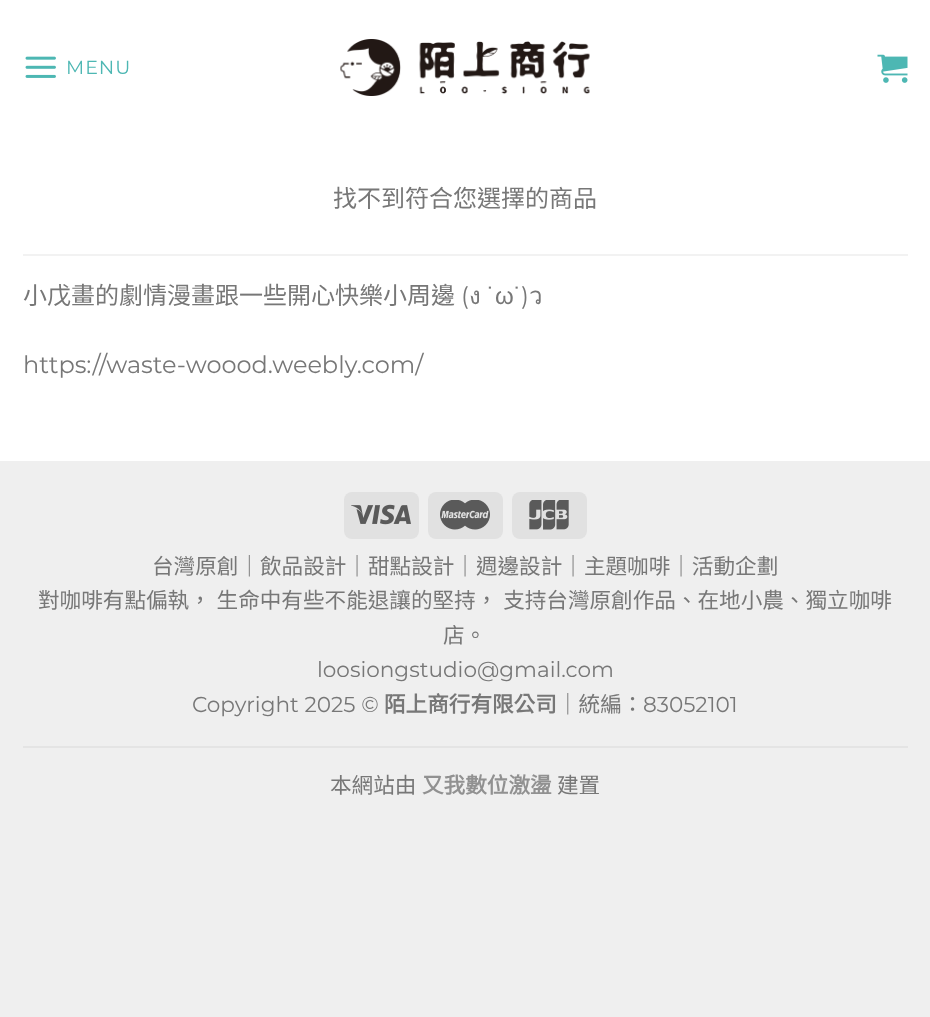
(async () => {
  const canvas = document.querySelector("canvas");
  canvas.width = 930;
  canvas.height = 1017;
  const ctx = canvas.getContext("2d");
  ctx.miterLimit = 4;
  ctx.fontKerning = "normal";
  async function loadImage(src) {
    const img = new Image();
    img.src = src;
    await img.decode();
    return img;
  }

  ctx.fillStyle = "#efefef";
  ctx.fillRect(0, 0, 930, 1017);
  ctx.fillStyle = "#ffffff";
  ctx.fillRect(0, 0, 930, 461);
  ctx.drawImage(await loadImage("img/1.png"), 25, 56, 31, 22);
  ctx.drawImage(await loadImage("img/2.png"), 340, 39, 250, 57);
  ctx.drawImage(await loadImage("img/3.png"), 877, 54, 31, 29);
  ctx.fillStyle = "#f2f2f2";
  ctx.fillRect(23, 254, 885, 2);
  ctx.fillStyle = "#e1e1e1";
  ctx.beginPath();
  ctx.roundRect(344, 492, 75, 47, 8);
  ctx.fill();
  ctx.drawImage(await loadImage("img/4.png"), 351, 504, 60, 21);
  ctx.beginPath();
  ctx.roundRect(428, 492, 75, 47, 8);
  ctx.fill();
  ctx.drawImage(await loadImage("img/5.png"), 440, 500, 50, 30);
  ctx.beginPath();
  ctx.roundRect(512, 492, 75, 47, 8);
  ctx.fill();
  ctx.drawImage(await loadImage("img/6.png"), 529, 500, 40, 30);
  ctx.fillStyle = "#e4e4e4";
  ctx.fillRect(23, 746, 885, 2);
  ctx.letterSpacing = "1px";
  ctx.font = "100 19px Montserrat";
  ctx.fillStyle = "#4db7b3";
  ctx.fillText("MENU", 66, 74);
  ctx.letterSpacing = "0px";
  ctx.font = "24px Noto Sans CJK TC";
  ctx.fillStyle = "#777777";
  ctx.fillText("找不到符合您選擇的商品", 333, 207);
  ctx.fillText("小戊畫的劇情漫畫跟一些開心快樂小周邊", 23, 304);
  ctx.font = "100 24px Montserrat";
  ctx.fillText("(", 461, 304);
  ctx.font = "24px Loma";
  ctx.fillText("ง", 469, 304);
  ctx.font = "24px Liberation Sans";
  ctx.fillText("˙ω˙", 487, 304);
  ctx.font = "100 24px Montserrat";
  ctx.fillText(")", 521, 304);
  ctx.font = "24px Loma";
  ctx.fillText("ว", 529, 304);
  ctx.font = "100 24px Montserrat";
  ctx.fillText("https://waste-woood.weebly.com/", 23, 373);
  ctx.font = "21.6px Noto Sans CJK TC";
  ctx.fillText("台灣原創｜飲品設計｜甜點設計｜週邊設計｜主題咖啡｜活動企劃", 152, 574);
  ctx.wordSpacing = "1px";
  ctx.fillText("對咖啡有點偏執， 生命中有些不能退讓的堅持， 支持台灣原創作品、在地小農、獨立咖啡", 38, 608);
  ctx.wordSpacing = "0px";
  ctx.fillText("店。", 443, 643);
  ctx.font = "100 21.6px Montserrat";
  ctx.fillText("loosiongstudio@gmail.com", 317, 677);
  ctx.fillText("Copyright 2025 ©", 192, 712);
  ctx.font = "bold 21.6px Noto Sans CJK TC";
  ctx.fillText("陌上商行有限公司", 384, 712);
  ctx.font = "21.6px Noto Sans CJK TC";
  ctx.fillText("｜統編：", 557, 712);
  ctx.font = "100 21.6px Montserrat";
  ctx.fillText("83052101", 643, 712);
  ctx.font = "21.6px Noto Sans CJK TC";
  ctx.fillText("本網站由", 330, 793);
  ctx.font = "bold 21.6px Noto Sans CJK TC";
  ctx.fillStyle = "#919191";
  ctx.fillText("又我數位激盪", 422, 793);
  ctx.font = "21.6px Noto Sans CJK TC";
  ctx.fillStyle = "#777777";
  ctx.fillText("建置", 557, 793);
})();
